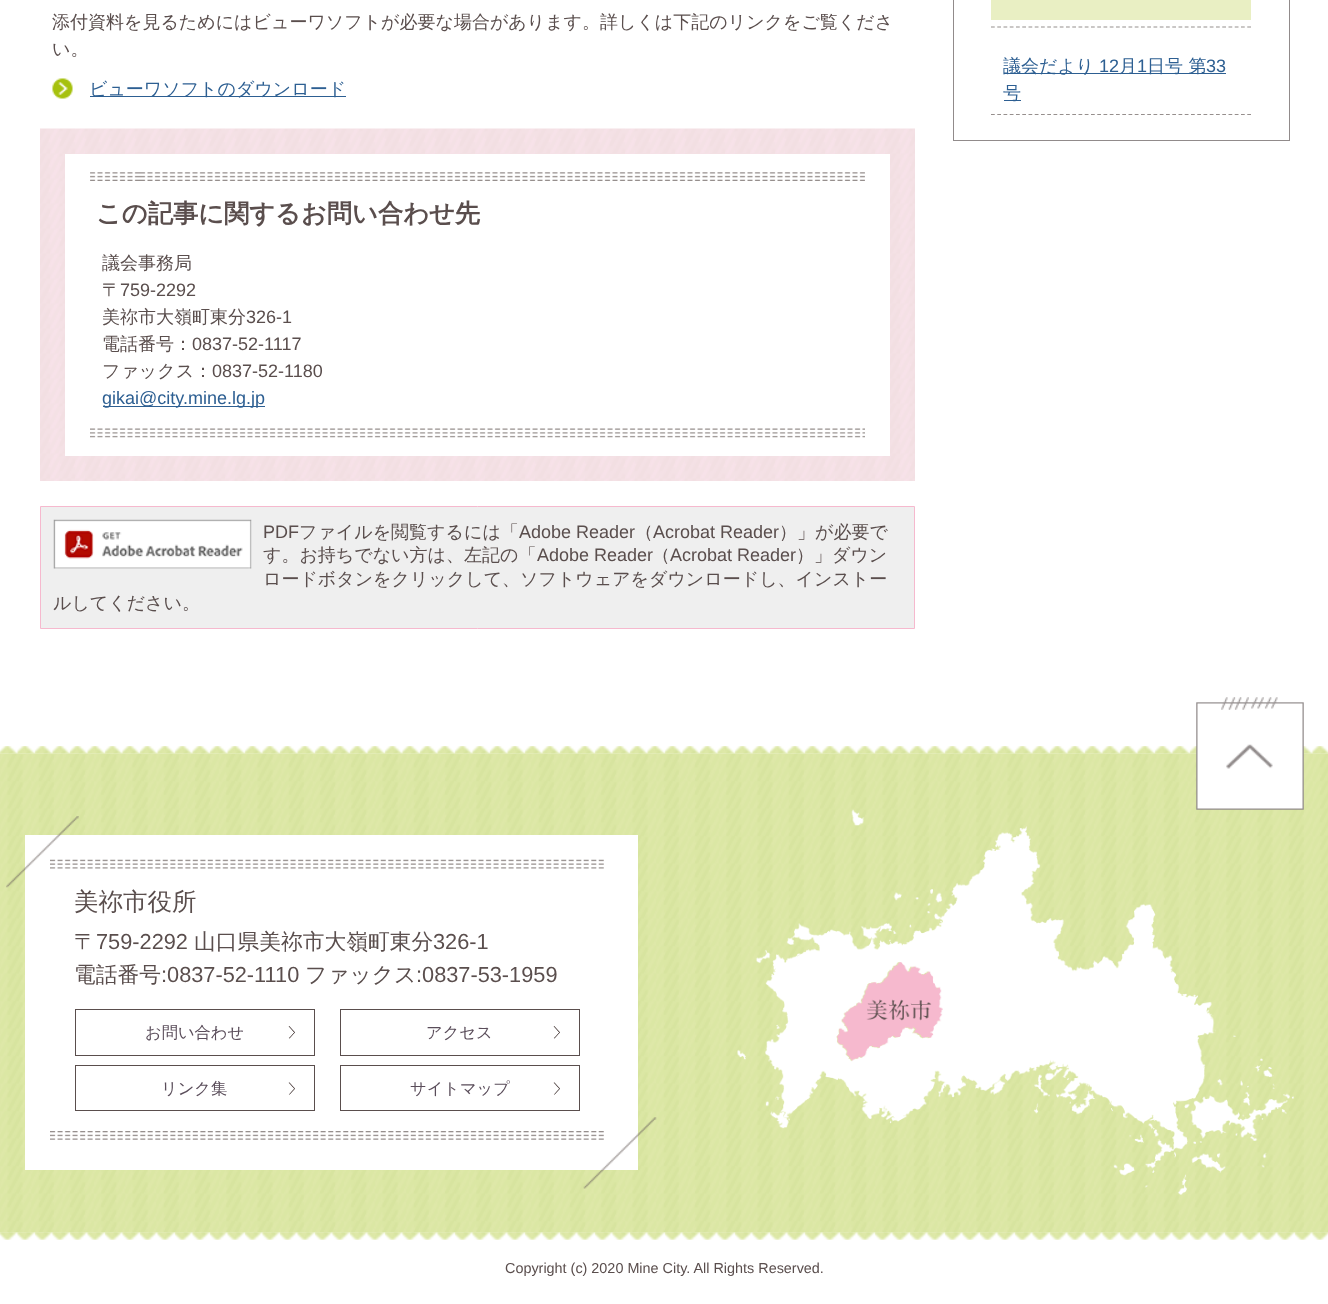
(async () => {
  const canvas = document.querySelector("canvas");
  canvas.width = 1328;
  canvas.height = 1304;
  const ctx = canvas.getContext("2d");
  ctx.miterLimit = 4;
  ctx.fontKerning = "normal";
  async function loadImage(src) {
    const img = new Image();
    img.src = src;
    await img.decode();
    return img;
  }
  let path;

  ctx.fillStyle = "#ffffff";
  ctx.fillRect(0, 0, 1328, 1304);
  ctx.drawImage(await loadImage("img/1.png"), 52, 78, 21, 21);
  ctx.fillStyle = "#2d5f92";
  ctx.fillRect(90, 96, 256, 1);
  ctx.drawImage(await loadImage("img/2.png"), 40, 128, 875, 353);
  ctx.fillStyle = "#ffffff";
  ctx.fillRect(65, 154, 825, 302);
  ctx.drawImage(await loadImage("img/3.png"), 90, 172, 775, 9);
  ctx.drawImage(await loadImage("img/4.png"), 90, 428, 775, 10);
  ctx.fillStyle = "#2d5f92";
  ctx.fillRect(103, 406, 162, 1);
  ctx.fillStyle = "#efefef";
  ctx.beginPath();
  ctx.rect(40.5, 506.5, 874, 122);
  ctx.fill();
  ctx.strokeStyle = "#f6b9ce";
  ctx.stroke();
  ctx.drawImage(await loadImage("img/5.png"), 53, 519, 199, 50);
  ctx.strokeStyle = "#918b8b";
  ctx.strokeRect(953.5, -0.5, 336, 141);
  path = new Path2D("M991 27H1251");
  ctx.strokeStyle = "#968f8d";
  ctx.lineWidth = 1.2;
  ctx.setLineDash([3.75, 2.5]);
  ctx.stroke(path);
  ctx.fillStyle = "#e9efc3";
  ctx.fillRect(991, 0, 260, 20);
  path = new Path2D("M991 114.5H1251");
  ctx.stroke(path);
  ctx.fillStyle = "#2d5f92";
  ctx.fillRect(1004, 73, 222, 1);
  ctx.fillRect(1004, 100, 17, 1);
  ctx.drawImage(await loadImage("img/6.png"), 0, 753, 1328, 480);
  ctx.drawImage(await loadImage("img/7.png"), 0, 746, 1328, 8);
  ctx.drawImage(await loadImage("img/15.png"), 737, 809, 557, 386);
  ctx.drawImage(await loadImage("img/8.png"), 1196, 697, 108, 113);
  ctx.fillStyle = "#ffffff";
  ctx.fillRect(25, 835, 613, 335);
  ctx.drawImage(await loadImage("img/9.png"), 6, 816, 73, 72);
  ctx.drawImage(await loadImage("img/10.png"), 50, 859, 554, 10);
  ctx.drawImage(await loadImage("img/11.png"), 288, 1026, 7, 13);
  ctx.strokeStyle = "#5a4e4d";
  ctx.lineWidth = 1;
  ctx.setLineDash([]);
  ctx.strokeRect(75.5, 1009.5, 239, 46);
  ctx.drawImage(await loadImage("img/11.png"), 553, 1026, 7, 13);
  ctx.strokeRect(340.5, 1009.5, 239, 46);
  ctx.drawImage(await loadImage("img/12.png"), 288, 1082, 7, 13);
  ctx.strokeRect(75.5, 1065.5, 239, 45);
  ctx.drawImage(await loadImage("img/12.png"), 553, 1082, 7, 13);
  ctx.strokeRect(340.5, 1065.5, 239, 45);
  ctx.drawImage(await loadImage("img/13.png"), 50, 1131, 554, 9);
  ctx.drawImage(await loadImage("img/14.png"), 583, 1117, 74, 72);
  ctx.drawImage(await loadImage("img/16.png"), 0, 1232, 1328, 8);
  ctx.font = "500 18px WenQuanYi Zen Hei";
  ctx.fillStyle = "#5a4e4d";
  ctx.fillText("添付資料を見るためにはビューワソフトが必要な場合があります。詳しくは下記のリンクをご覧くださ", 52, 28);
  ctx.fillText("い。", 52, 55);
  ctx.fillStyle = "#2d5f92";
  ctx.fillText("ビューワソフトのダウンロード", 89, 95);
  ctx.font = "bold 25.25px WenQuanYi Zen Hei";
  ctx.fillStyle = "#5a4e4d";
  ctx.fillText("この記事に関するお問い合わせ先", 96, 222);
  ctx.font = "500 18px WenQuanYi Zen Hei";
  ctx.fillText("議会事務局", 102, 269);
  ctx.fillText("〒", 102, 296);
  ctx.font = "18px Liberation Sans";
  ctx.fillText("759-2292", 120, 296);
  ctx.font = "500 18px WenQuanYi Zen Hei";
  ctx.fillText("美祢市大嶺町東分", 102, 323);
  ctx.font = "18px Liberation Sans";
  ctx.fillText("326-1", 246, 323);
  ctx.font = "500 18px WenQuanYi Zen Hei";
  ctx.fillText("電話番号：", 102, 350);
  ctx.font = "18px Liberation Sans";
  ctx.fillText("0837-52-1117", 192, 350);
  ctx.font = "500 18px WenQuanYi Zen Hei";
  ctx.fillText("ファックス：", 102, 377);
  ctx.font = "18px Liberation Sans";
  ctx.fillText("0837-52-1180", 212, 377);
  ctx.fillStyle = "#2d5f92";
  ctx.fillText("gikai@city.mine.lg.jp", 102, 404);
  ctx.fillStyle = "#5a4e4d";
  ctx.fillText("PDF", 263, 538);
  ctx.font = "500 18px WenQuanYi Zen Hei";
  ctx.fillText("ファイルを閲覧するには「", 299, 538);
  ctx.font = "18px Liberation Sans";
  ctx.fillText("Adobe Reader", 519, 538);
  ctx.font = "500 18px WenQuanYi Zen Hei";
  ctx.fillText("（", 635, 538);
  ctx.font = "18px Liberation Sans";
  ctx.fillText("Acrobat Reader", 653, 538);
  ctx.font = "500 18px WenQuanYi Zen Hei";
  ctx.fillText("）」が必要で", 779, 538);
  ctx.fillText("す。お持ちでない方は、左記の「", 263, 561);
  ctx.font = "18px Liberation Sans";
  ctx.fillText("Adobe Reader", 537, 561);
  ctx.font = "500 18px WenQuanYi Zen Hei";
  ctx.fillText("（", 652, 561);
  ctx.font = "18px Liberation Sans";
  ctx.fillText("Acrobat Reader", 670, 561);
  ctx.font = "500 18px WenQuanYi Zen Hei";
  for (const [text, x, y] of [
    ["）」ダウン", 796, 561],
    ["ロードボタンをクリックして、ソフトウェアをダウンロードし、インストー", 263, 585],
    ["ルしてください。", 53, 609],
  ]) {
    ctx.fillText(text, x, y);
  }
  ctx.fillStyle = "#2d5f92";
  ctx.fillText("議会だより", 1003, 72);
  ctx.font = "18px Liberation Sans";
  ctx.fillText("12", 1099, 72);
  ctx.font = "500 18px WenQuanYi Zen Hei";
  ctx.fillText("月", 1119, 72);
  ctx.font = "18px Liberation Sans";
  ctx.fillText("1", 1137, 72);
  ctx.font = "500 18px WenQuanYi Zen Hei";
  ctx.fillText("日号 第", 1147, 72);
  ctx.font = "18px Liberation Sans";
  ctx.fillText("33", 1206, 72);
  ctx.font = "500 18px WenQuanYi Zen Hei";
  ctx.fillText("号", 1003, 99);
  ctx.font = "500 24.5px WenQuanYi Zen Hei";
  ctx.fillStyle = "#5a4e4d";
  ctx.fillText("美祢市役所", 74, 910);
  ctx.font = "500 21.75px WenQuanYi Zen Hei";
  ctx.fillText("〒", 74, 949);
  ctx.font = "21.75px Liberation Sans";
  ctx.fillText("759-2292", 96, 949);
  ctx.font = "500 21.75px WenQuanYi Zen Hei";
  ctx.fillText("山口県美祢市大嶺町東分", 194, 949);
  ctx.font = "21.75px Liberation Sans";
  ctx.fillText("326-1", 433, 949);
  ctx.font = "500 21.75px WenQuanYi Zen Hei";
  ctx.fillText("電話番号", 74, 982);
  ctx.font = "21.75px Liberation Sans";
  ctx.fillText(":0837-52-1110", 161, 982);
  ctx.font = "500 21.75px WenQuanYi Zen Hei";
  ctx.fillText("ファックス", 305, 982);
  ctx.font = "21.75px Liberation Sans";
  ctx.fillText(":0837-53-1959", 416, 982);
  ctx.font = "500 16.25px WenQuanYi Zen Hei";
  ctx.fillStyle = "#5a4d5a";
  for (const [text, x, y] of [
    ["お問い合わせ", 145, 1038],
    ["アクセス", 426, 1038],
    ["リンク集", 161, 1094],
    ["サイトマップ", 410, 1094],
  ]) {
    ctx.fillText(text, x, y);
  }
  ctx.font = "14.4px Liberation Sans";
  ctx.fillStyle = "#5a4e4d";
  ctx.fillText("Copyright (c) 2020 Mine City. All Rights Reserved.", 505, 1273);
})();
